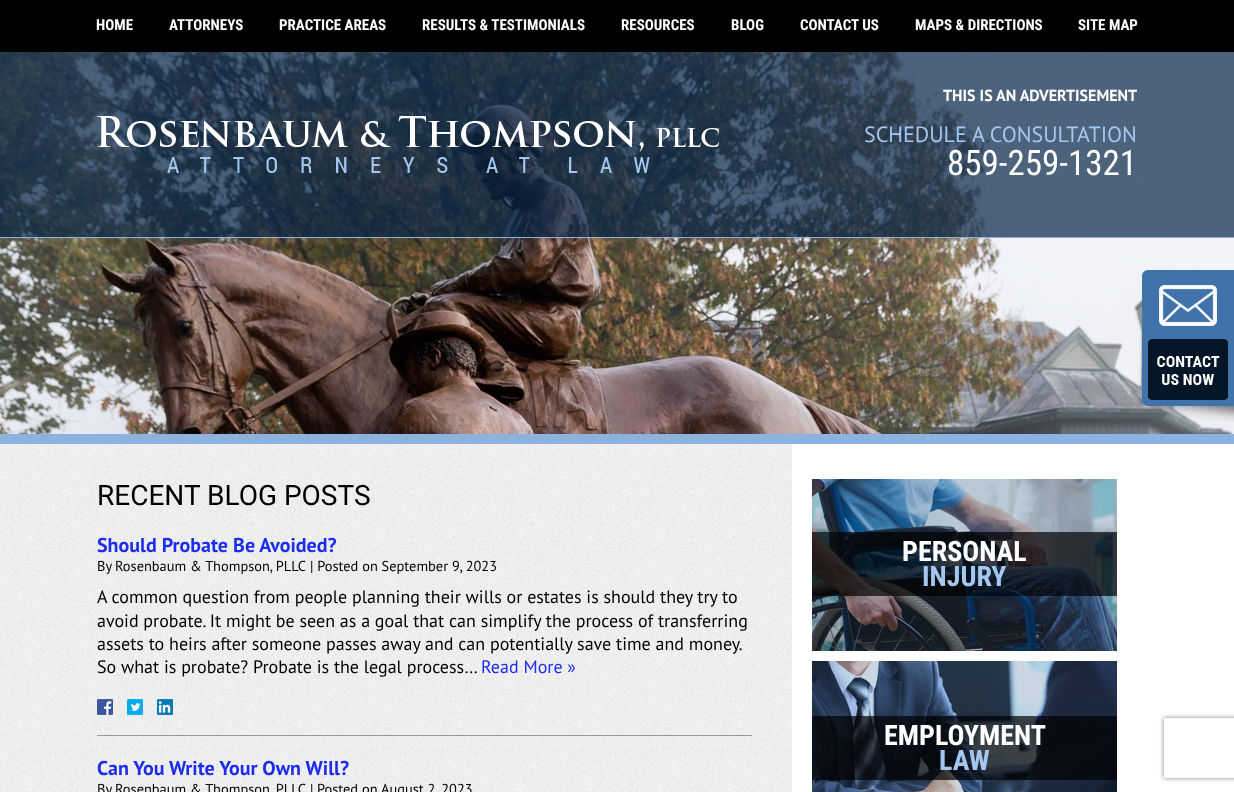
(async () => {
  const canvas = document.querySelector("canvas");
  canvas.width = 1234;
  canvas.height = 792;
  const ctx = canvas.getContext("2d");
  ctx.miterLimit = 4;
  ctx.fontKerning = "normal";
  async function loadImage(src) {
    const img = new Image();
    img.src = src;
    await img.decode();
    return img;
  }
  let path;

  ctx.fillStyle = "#ffffff";
  ctx.fillRect(0, 0, 1234, 792);
  ctx.drawImage(await loadImage("img/1.png"), 0, 444, 792, 348);
  ctx.drawImage(await loadImage("img/3.png"), 0, 52, 1234, 382);
  for (const [x, y, w, h, color] of [
    [0, 237, 1234, 1, "#8cb2e0"],
    [0, 0, 1234, 52, "#000000"],
    [0, 52, 1234, 185, "rgba(5, 35, 70, 0.7)"],
  ]) {
    ctx.fillStyle = color;
    ctx.fillRect(x, y, w, h);
  }
  ctx.drawImage(await loadImage("img/2.png"), 97, 115, 622, 58);
  ctx.fillStyle = "#8cb2e0";
  ctx.fillRect(0, 434, 1234, 10);
  ctx.fillStyle = "#999999";
  ctx.fillRect(97, 735, 655, 1);
  ctx.drawImage(await loadImage("img/4.png"), 97, 699, 16, 16);
  ctx.drawImage(await loadImage("img/5.png"), 127, 699, 16, 16);
  ctx.drawImage(await loadImage("img/6.png"), 157, 699, 16, 16);
  ctx.drawImage(await loadImage("img/7.png"), 812, 479, 305, 172);
  ctx.drawImage(await loadImage("img/8.png"), 812, 661, 305, 131);
  ctx.drawImage(await loadImage("img/9.png"), 1142, 270, 92, 152);
  ctx.save();
  path = new Path2D("M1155 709H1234V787H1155ZM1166 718H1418C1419 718 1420 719 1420 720V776C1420 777 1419 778 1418 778H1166C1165 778 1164 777 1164 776V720C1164 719 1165 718 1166 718Z");
  ctx.clip(path, "evenodd");
  ctx.fillStyle = "#808080";
  ctx.filter = "blur(2.5px)";
  ctx.beginPath();
  ctx.roundRect(1164, 718, 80, 60, 2);
  ctx.fill();
  ctx.filter = "none";
  ctx.restore();
  ctx.font = "bold 15px Roboto Condensed";
  ctx.fillStyle = "#ffffff";
  for (const [text, x, y] of [
    ["HOME", 96, 30],
    ["ATTORNEYS", 169, 30],
    ["PRACTICE AREAS", 279, 30],
    ["RESULTS & TESTIMONIALS", 422, 30],
    ["RESOURCES", 621, 30],
    ["BLOG", 731, 30],
    ["CONTACT US", 800, 30],
    ["MAPS & DIRECTIONS", 915, 30],
    ["SITE MAP", 1078, 30],
  ]) {
    ctx.fillText(text, x, y);
  }
  ctx.font = "bold 16px PT Sans";
  ctx.fillText("THIS IS AN ADVERTISEMENT", 943, 101);
  ctx.font = "22px PT Sans";
  ctx.fillStyle = "#a4c7f1";
  ctx.fillText("SCHEDULE A CONSULTATION", 864, 142);
  ctx.font = "35px Roboto Condensed";
  ctx.fillStyle = "#ffffff";
  ctx.fillText("859-259-1321", 947, 175);
  ctx.font = "28px Roboto";
  ctx.fillStyle = "#000000";
  ctx.fillText("RECENT BLOG POSTS", 97, 505);
  ctx.font = "bold 20px PT Sans";
  ctx.fillStyle = "#1d2df0";
  ctx.fillText("Should Probate Be Avoided?", 97, 552);
  ctx.font = "14.4px PT Sans";
  ctx.fillStyle = "#000000";
  for (const [text, x, y] of [
    ["By", 97, 571],
    ["Rosenbaum & Thompson, PLLC", 115, 571],
    ["| Posted on September 9, 2023", 310, 571],
  ]) {
    ctx.fillText(text, x, y);
  }
  ctx.font = "18px PT Sans";
  for (const [text, x, y] of [
    ["A common question from people planning their wills or estates is should they try to", 97, 603],
    ["avoid probate. It might be seen as a goal that can simplify the process of transferring", 97, 627],
    ["assets to heirs after someone passes away and can potentially save time and money.", 97, 650],
    ["So what is probate? Probate is the legal process…", 97, 673],
  ]) {
    ctx.fillText(text, x, y);
  }
  ctx.fillStyle = "#1d2df0";
  ctx.fillText("Read More »", 481, 673);
  ctx.font = "bold 20px PT Sans";
  ctx.fillText("Can You Write Your Own Will?", 97, 775);
  ctx.font = "14.4px PT Sans";
  ctx.fillStyle = "#000000";
  for (const [text, x, y] of [
    ["By", 97, 794],
    ["Rosenbaum & Thompson, PLLC", 115, 794],
    ["|", 310, 794],
    ["Posted on", 317, 794],
    ["August 2, 2023", 381, 794],
  ]) {
    ctx.fillText(text, x, y);
  }
  ctx.font = "bold 28px Roboto Condensed";
  ctx.fillStyle = "#ffffff";
  ctx.fillText("PERSONAL", 902, 561);
  ctx.fillStyle = "#a4c7f1";
  ctx.fillText("INJURY", 922, 586);
  ctx.fillStyle = "#ffffff";
  ctx.fillText("EMPLOYMENT", 884, 745);
  ctx.fillStyle = "#a4c7f1";
  ctx.fillText("LAW", 939, 770);
})();
